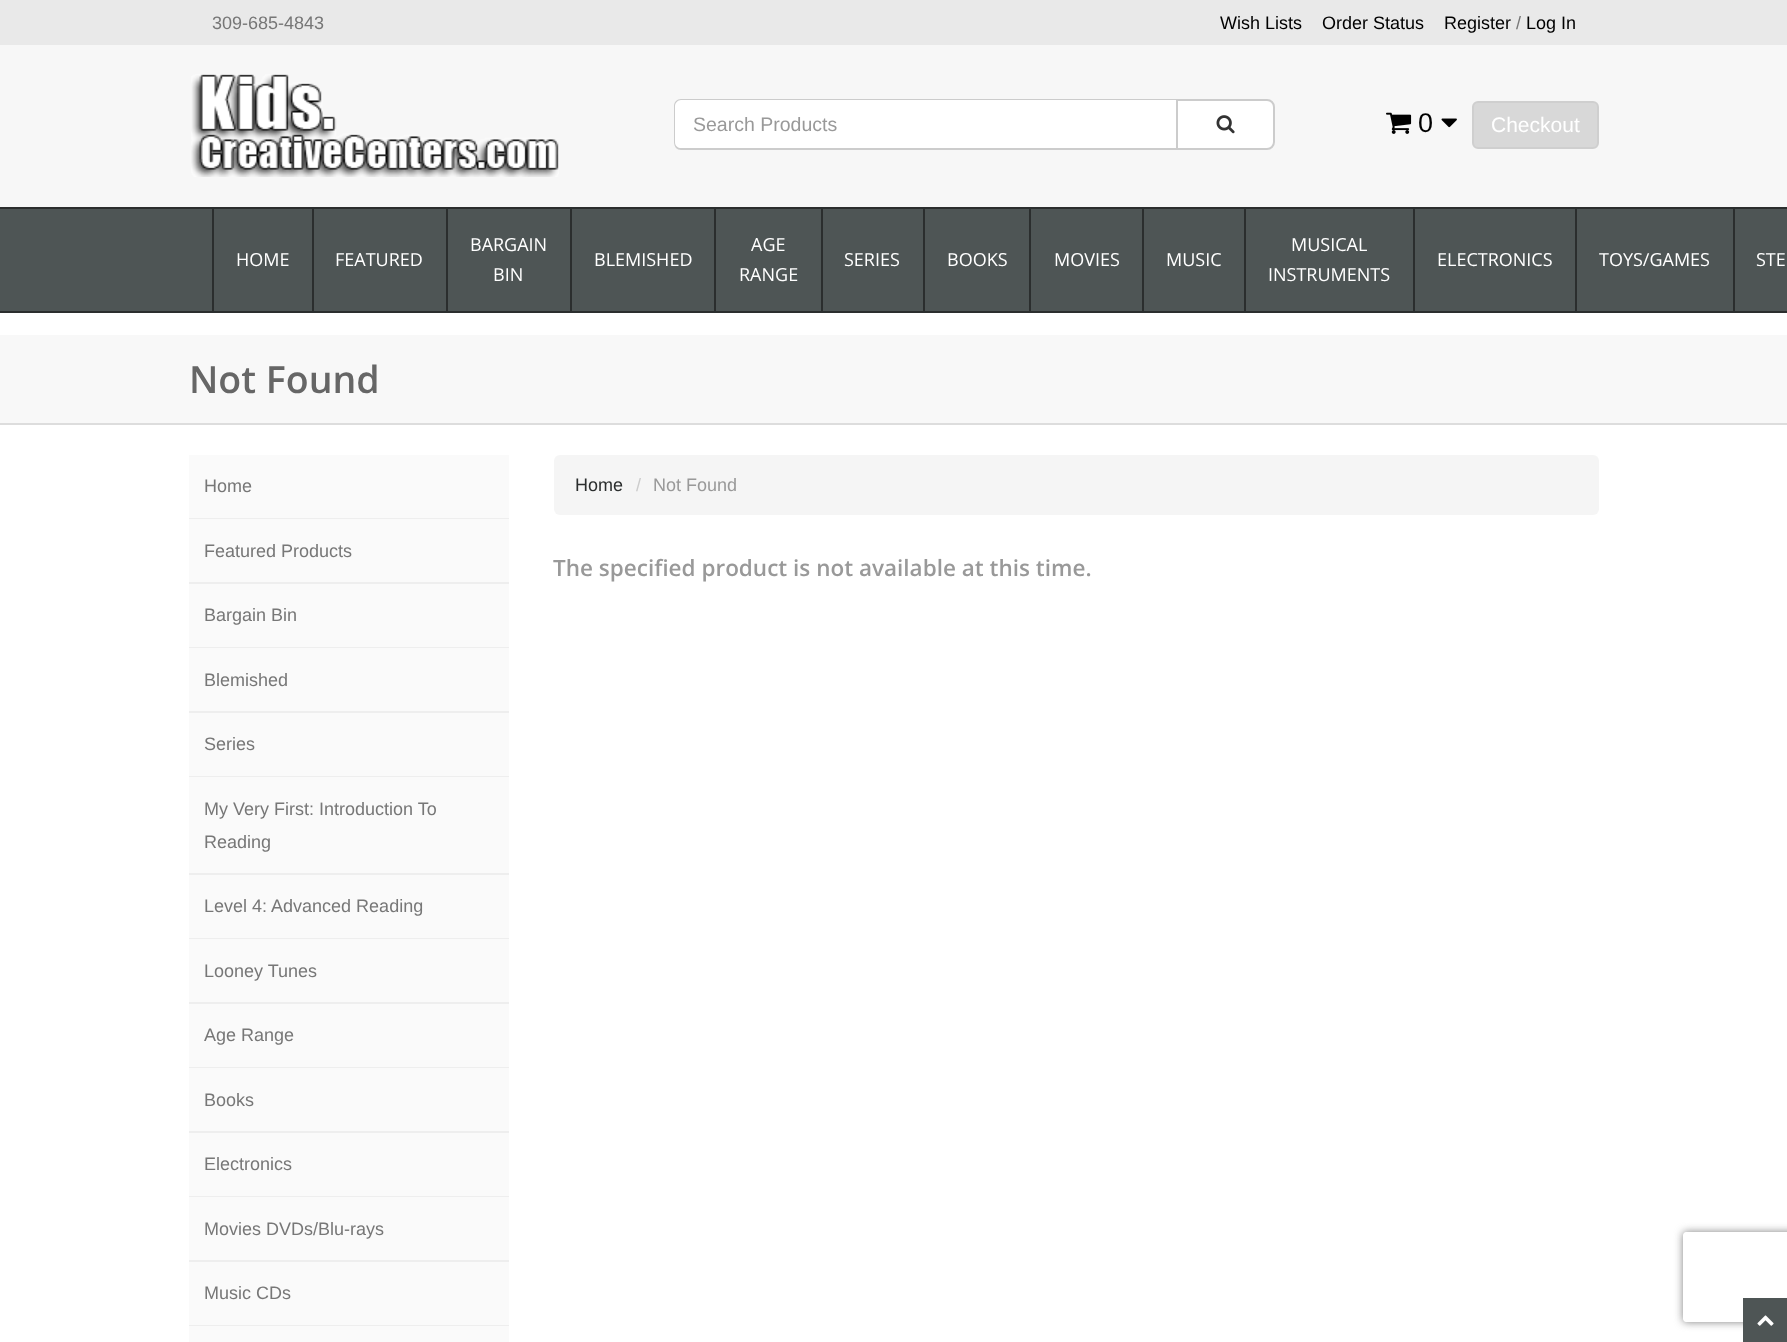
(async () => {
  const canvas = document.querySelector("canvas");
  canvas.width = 1787;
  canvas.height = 1342;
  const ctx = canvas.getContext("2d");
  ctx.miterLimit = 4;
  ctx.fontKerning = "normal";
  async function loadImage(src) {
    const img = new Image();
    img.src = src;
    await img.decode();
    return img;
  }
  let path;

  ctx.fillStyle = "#ffffff";
  ctx.fillRect(0, 0, 1787, 1342);
  ctx.fillStyle = "#e9e9e9";
  ctx.fillRect(0, 0, 1787, 45);
  ctx.fillStyle = "#f7f7f7";
  ctx.fillRect(0, 45, 1787, 162);
  ctx.drawImage(await loadImage("img/1.png"), 191, 74, 368, 103);
  ctx.fillStyle = "#ffffff";
  ctx.beginPath();
  ctx.roundRect(674, 99, 502, 51, [8, 0, 0, 8]);
  ctx.fill();
  ctx.fillStyle = "#cccccc";
  path = new Path2D("M681 99H1176V150H681C677 150 674 147 674 142V106C674 102 677 99 681 99ZM681 100H1176V148H681C678 148 675 146 675 142V106C675 103 678 100 681 100Z");
  ctx.fill(path, "evenodd");
  ctx.fillStyle = "#ffffff";
  ctx.beginPath();
  ctx.roundRect(1177, 100, 97, 49, [0, 7, 7, 0]);
  ctx.fill();
  ctx.strokeStyle = "#cccccc";
  ctx.lineWidth = 2;
  ctx.stroke();
  ctx.drawImage(await loadImage("img/2.png"), 1216, 115, 19, 19);
  ctx.drawImage(await loadImage("img/3.png"), 1386, 112, 26, 22);
  ctx.drawImage(await loadImage("img/4.png"), 1441, 118, 16, 10);
  ctx.fillStyle = "#d8d8d8";
  ctx.beginPath();
  ctx.roundRect(1473, 102, 125, 46, 5);
  ctx.fill();
  ctx.strokeStyle = "#cfcfcf";
  ctx.stroke();
  for (const [x, y, w, h, color] of [
    [0, 209, 1787, 102, "#4e5555"],
    [0, 207, 1787, 2, "#2b2e2e"],
    [0, 311, 1787, 2, "#2b2e2e"],
    [212, 209, 2, 102, "#2b2e2e"],
    [312, 209, 2, 102, "#2b2e2e"],
    [446, 209, 2, 102, "#2b2e2e"],
    [570, 209, 2, 102, "#2b2e2e"],
    [714, 209, 2, 102, "#2b2e2e"],
    [821, 209, 2, 102, "#2b2e2e"],
    [923, 209, 2, 102, "#2b2e2e"],
    [1029, 209, 2, 102, "#2b2e2e"],
    [1142, 209, 2, 102, "#2b2e2e"],
    [1244, 209, 2, 102, "#2b2e2e"],
    [1413, 209, 2, 102, "#2b2e2e"],
    [1575, 209, 2, 102, "#2b2e2e"],
    [1733, 209, 2, 102, "#2b2e2e"],
    [0, 335, 1787, 88, "#f8f8f8"],
    [0, 423, 1787, 2, "#dddddd"],
    [189, 455, 320, 63, "#fafafa"],
    [189, 518, 320, 1, "#eeeeee"],
    [189, 519, 320, 63, "#fafafa"],
    [189, 582, 320, 2, "#eeeeee"],
    [189, 584, 320, 63, "#fafafa"],
    [189, 647, 320, 1, "#eeeeee"],
    [189, 648, 320, 63, "#fafafa"],
    [189, 711, 320, 2, "#eeeeee"],
    [189, 713, 320, 63, "#fafafa"],
    [189, 776, 320, 1, "#eeeeee"],
    [189, 777, 320, 96, "#fafafa"],
    [189, 873, 320, 2, "#eeeeee"],
    [189, 875, 320, 63, "#fafafa"],
    [189, 938, 320, 1, "#eeeeee"],
    [189, 939, 320, 63, "#fafafa"],
    [189, 1002, 320, 2, "#eeeeee"],
    [189, 1004, 320, 63, "#fafafa"],
    [189, 1067, 320, 1, "#eeeeee"],
    [189, 1068, 320, 63, "#fafafa"],
    [189, 1131, 320, 2, "#eeeeee"],
    [189, 1133, 320, 63, "#fafafa"],
    [189, 1196, 320, 1, "#eeeeee"],
    [189, 1197, 320, 63, "#fafafa"],
    [189, 1260, 320, 2, "#eeeeee"],
    [189, 1262, 320, 63, "#fafafa"],
    [189, 1325, 320, 1, "#eeeeee"],
    [189, 1326, 320, 16, "#fafafa"],
  ]) {
    ctx.fillStyle = color;
    ctx.fillRect(x, y, w, h);
  }
  ctx.fillStyle = "#f5f5f5";
  ctx.beginPath();
  ctx.roundRect(554, 455, 1045, 60, 6);
  ctx.fill();
  ctx.save();
  path = new Path2D("M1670 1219H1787V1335H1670ZM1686 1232H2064C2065.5 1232 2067 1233.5 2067 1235V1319C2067 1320.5 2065.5 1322 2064 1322H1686C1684.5 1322 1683 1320.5 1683 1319V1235C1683 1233.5 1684.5 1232 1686 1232Z");
  ctx.clip(path, "evenodd");
  ctx.fillStyle = "#808080";
  ctx.filter = "blur(4px)";
  ctx.beginPath();
  ctx.roundRect(1683, 1232, 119, 90, 3);
  ctx.fill();
  ctx.filter = "none";
  ctx.restore();
  ctx.fillStyle = "#4e5555";
  ctx.fillRect(1743, 1298, 44, 44);
  ctx.drawImage(await loadImage("img/5.png"), 1757, 1315, 17, 11);
  ctx.font = "18px Liberation Sans";
  ctx.fillStyle = "#777777";
  ctx.fillText("309-685-4843", 212, 29);
  ctx.fillStyle = "#000000";
  for (const [text, x, y] of [
    ["Wish Lists", 1220, 29],
    ["Order Status", 1322, 29],
    ["Register", 1444, 29],
  ]) {
    ctx.fillText(text, x, y);
  }
  ctx.fillStyle = "#777777";
  ctx.fillText("/", 1516, 29);
  ctx.fillStyle = "#000000";
  ctx.fillText("Log In", 1526, 29);
  ctx.font = "19.5px Liberation Sans";
  ctx.fillStyle = "#999999";
  ctx.fillText("Search Products", 693, 131);
  ctx.font = "27px Liberation Sans";
  ctx.fillStyle = "#000000";
  ctx.fillText("0", 1418, 132);
  ctx.font = "21px Liberation Sans";
  ctx.fillStyle = "#ffffff";
  ctx.fillText("Checkout", 1491, 132);
  ctx.font = "18px Open Sans";
  for (const [text, x, y] of [
    ["HOME", 236, 266],
    ["FEATURED", 335, 266],
    ["BARGAIN", 470, 251],
    ["BIN", 493, 281],
    ["BLEMISHED", 594, 266],
    ["AGE", 751, 251],
    ["RANGE", 739, 281],
    ["SERIES", 844, 266],
    ["BOOKS", 947, 266],
    ["MOVIES", 1054, 266],
    ["MUSIC", 1166, 266],
    ["MUSICAL", 1291, 251],
    ["INSTRUMENTS", 1268, 281],
    ["ELECTRONICS", 1437, 266],
    ["TOYS/GAMES", 1599, 266],
    ["STE", 1756, 266],
  ]) {
    ctx.fillText(text, x, y);
  }
  ctx.font = "600 37.5px Open Sans";
  ctx.fillStyle = "#666666";
  ctx.fillText("Not Found", 189, 393);
  ctx.font = "18px Liberation Sans";
  ctx.fillStyle = "#777777";
  for (const [text, x, y] of [
    ["Home", 204, 492],
    ["Featured Products", 204, 557],
    ["Bargain Bin", 204, 621],
    ["Blemished", 204, 686],
    ["Series", 204, 750],
    ["My Very First: Introduction To", 204, 815],
    ["Reading", 204, 848],
    ["Level 4: Advanced Reading", 204, 912],
    ["Looney Tunes", 204, 977],
    ["Age Range", 204, 1041],
    ["Books", 204, 1106],
    ["Electronics", 204, 1170],
    ["Movies DVDs/Blu-rays", 204, 1235],
    ["Music CDs", 204, 1299],
  ]) {
    ctx.fillText(text, x, y);
  }
  ctx.fillStyle = "#2b2e2e";
  ctx.fillText("Home", 575, 491);
  ctx.fillStyle = "#cccccc";
  ctx.fillText("/", 636, 491);
  ctx.fillStyle = "#999999";
  ctx.fillText("Not Found", 653, 491);
  ctx.font = "600 22.5px Open Sans";
  ctx.fillText("The specified product is not available at this time.", 553, 576);
})();
